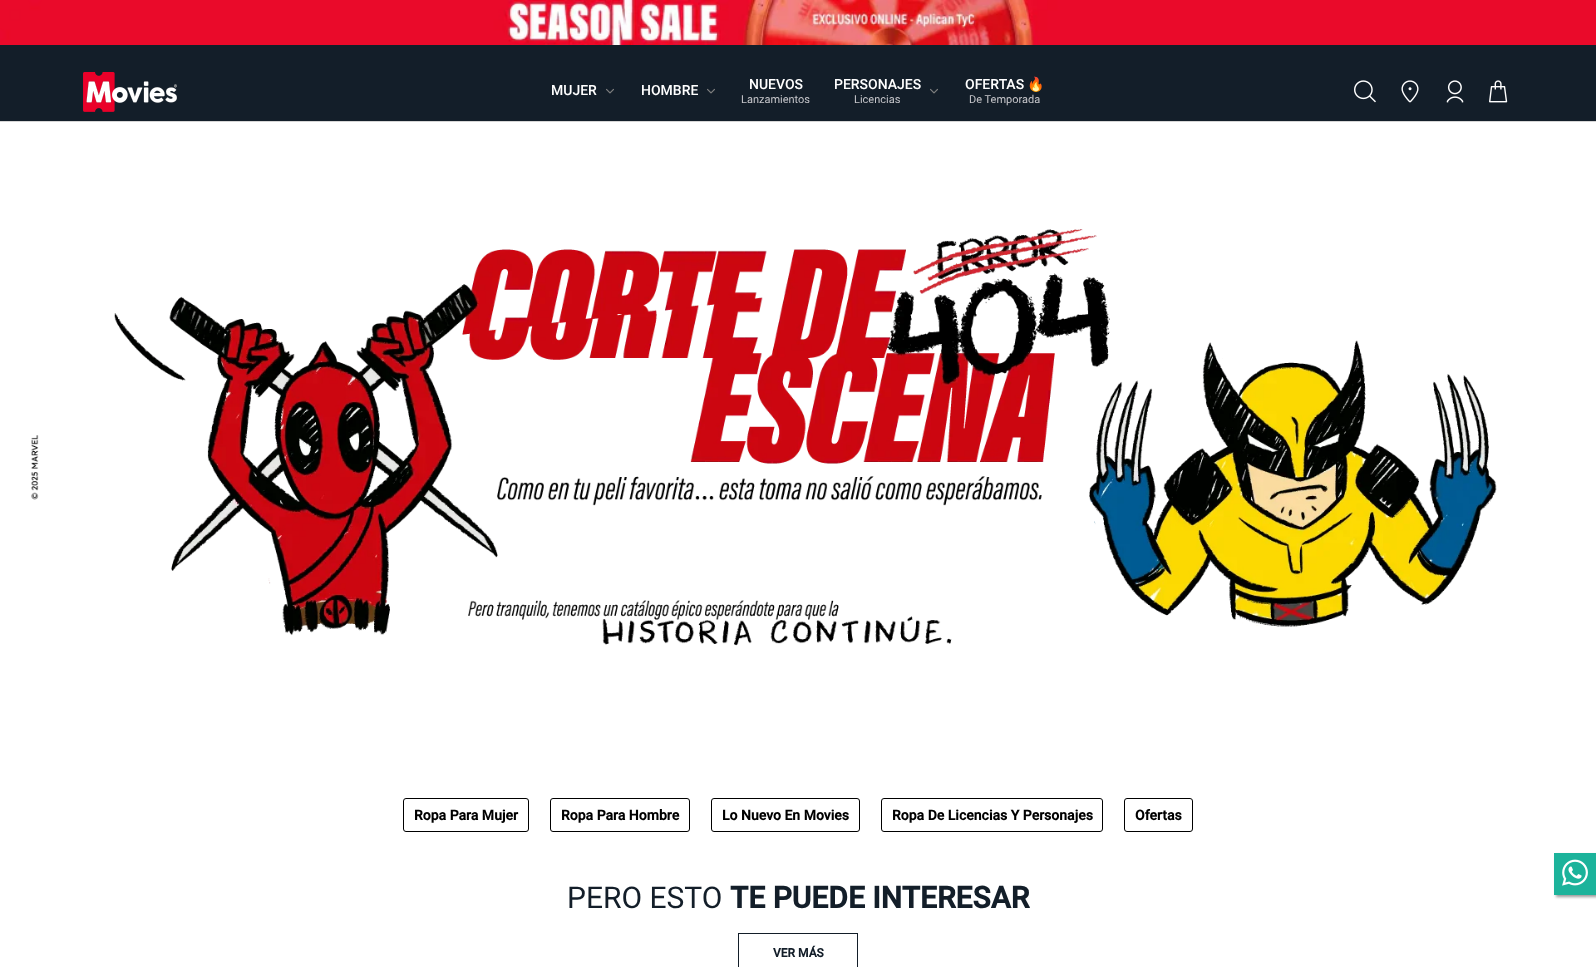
(async () => {
  const canvas = document.querySelector("canvas");
  canvas.width = 1596;
  canvas.height = 967;
  const ctx = canvas.getContext("2d");
  ctx.miterLimit = 4;
  ctx.fontKerning = "normal";
  async function loadImage(src) {
    const img = new Image();
    img.src = src;
    await img.decode();
    return img;
  }

  ctx.fillStyle = "#ffffff";
  ctx.fillRect(0, 0, 1596, 967);
  ctx.fillStyle = "#131e29";
  ctx.fillRect(0, 45, 1596, 76);
  ctx.fillStyle = "#d6d6d6";
  ctx.fillRect(0, 121, 1596, 1);
  ctx.drawImage(await loadImage("img/1.png"), 0, 0, 1596, 45);
  ctx.drawImage(await loadImage("img/2.png"), 83, 72, 94, 40);
  ctx.drawImage(await loadImage("img/3.png"), 606, 88, 8, 6);
  ctx.drawImage(await loadImage("img/3.png"), 707, 88, 8, 6);
  ctx.drawImage(await loadImage("img/3.png"), 930, 88, 8, 6);
  ctx.drawImage(await loadImage("img/4.png"), 1354, 80, 22, 23);
  ctx.drawImage(await loadImage("img/5.png"), 1401, 80, 18, 23);
  ctx.drawImage(await loadImage("img/6.png"), 1446, 80, 18, 23);
  ctx.drawImage(await loadImage("img/7.png"), 1489, 80, 19, 23);
  ctx.drawImage(await loadImage("img/8.png"), 31, 229, 1466, 417);
  ctx.beginPath();
  ctx.roundRect(403.5, 798.5, 125, 33, 2.5);
  ctx.strokeStyle = "#000000";
  ctx.stroke();
  ctx.beginPath();
  ctx.roundRect(550.5, 798.5, 139, 33, 2.5);
  ctx.stroke();
  ctx.beginPath();
  ctx.roundRect(711.5, 798.5, 148, 33, 2.5);
  ctx.stroke();
  ctx.beginPath();
  ctx.roundRect(881.5, 798.5, 221, 33, 2.5);
  ctx.stroke();
  ctx.beginPath();
  ctx.roundRect(1124.5, 798.5, 68, 33, 2.5);
  ctx.stroke();
  ctx.strokeStyle = "#131e29";
  ctx.strokeRect(738.5, 933.5, 119, 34);
  ctx.fillStyle = "#999999";
  ctx.filter = "blur(1.5px)";
  ctx.beginPath();
  ctx.rect(1556, 855, 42, 42);
  ctx.fill();
  ctx.filter = "none";
  ctx.fillStyle = "#1cb39b";
  ctx.fillRect(1554, 853, 42, 42);
  ctx.drawImage(await loadImage("img/9.png"), 1562, 859, 26, 27);
  ctx.font = "500 14px Roboto";
  ctx.fillStyle = "#ffffff";
  for (const [text, x, y] of [
    ["MUJER", 551, 95],
    ["HOMBRE", 641, 95],
    ["NUEVOS", 749, 89],
  ]) {
    ctx.fillText(text, x, y);
  }
  ctx.font = "11px Roboto";
  ctx.fillStyle = "#c6c6ca";
  ctx.fillText("Lanzamientos", 741, 103);
  ctx.font = "500 14px Roboto";
  ctx.fillStyle = "#ffffff";
  ctx.fillText("PERSONAJES", 834, 89);
  ctx.font = "11px Roboto";
  ctx.fillStyle = "#c6c6ca";
  ctx.fillText("Licencias", 854, 103);
  ctx.font = "500 14px Roboto";
  ctx.fillStyle = "#ffffff";
  ctx.fillText("OFERTAS", 965, 89);
  ctx.font = "14px Noto Color Emoji";
  ctx.fillText("🔥", 1027, 89);
  ctx.font = "11px Roboto";
  ctx.fillStyle = "#c6c6ca";
  ctx.fillText("De Temporada", 969, 103);
  ctx.font = "bold 14px Roboto";
  ctx.fillStyle = "#000000";
  for (const [text, x, y] of [
    ["Ropa Para Mujer", 414, 820],
    ["Ropa Para Hombre", 561, 820],
    ["Lo Nuevo En Movies", 722, 820],
    ["Ropa De Licencias Y Personajes", 892, 820],
    ["Ofertas", 1135, 820],
  ]) {
    ctx.fillText(text, x, y);
  }
  ctx.font = "30px Roboto";
  ctx.fillStyle = "#131e29";
  ctx.fillText("PERO ESTO", 567, 908);
  ctx.font = "bold 30px Roboto";
  ctx.fillText("TE PUEDE INTERESAR", 730, 908);
  ctx.font = "bold 12px Roboto";
  ctx.fillText("VER MÁS", 773, 957);
})();
